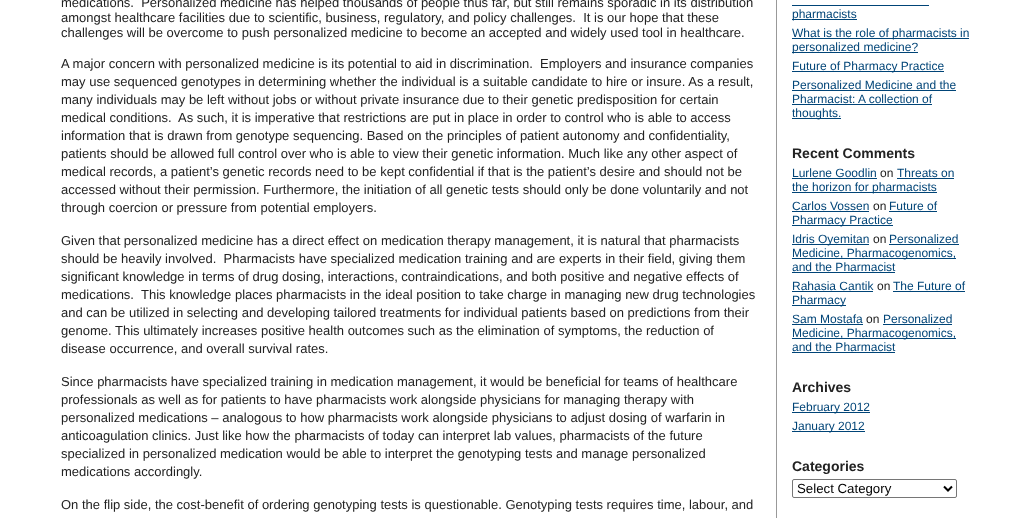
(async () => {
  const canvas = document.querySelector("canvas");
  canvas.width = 1033;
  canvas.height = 518;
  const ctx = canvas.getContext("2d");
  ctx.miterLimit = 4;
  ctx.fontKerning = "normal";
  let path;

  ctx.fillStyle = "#ffffff";
  ctx.fillRect(0, 0, 1033, 518);
  for (const [x, y, w, h, color] of [
    [776, 0, 1, 518, "#999999"],
    [792, 5, 137, 1, "#004477"],
    [792, 19, 65, 1, "#004477"],
    [792, 38, 177, 1, "#004477"],
    [792, 52, 126, 1, "#004477"],
    [792, 71, 152, 1, "#004477"],
    [792, 90, 164, 1, "#004477"],
    [792, 104, 140, 1, "#004477"],
    [792, 118, 49, 1, "#004477"],
    [792, 178, 85, 1, "#004477"],
    [897, 178, 57, 1, "#004477"],
    [792, 192, 145, 1, "#004477"],
    [792, 211, 77, 1, "#004477"],
    [889, 211, 48, 1, "#004477"],
    [792, 225, 101, 1, "#004477"],
    [792, 244, 77, 1, "#004477"],
    [889, 244, 70, 1, "#004477"],
    [792, 258, 164, 1, "#004477"],
    [792, 272, 103, 1, "#004477"],
    [792, 291, 81, 1, "#004477"],
    [893, 291, 72, 1, "#004477"],
    [792, 305, 54, 1, "#004477"],
    [792, 324, 71, 1, "#004477"],
    [883, 324, 69, 1, "#004477"],
    [792, 338, 164, 1, "#004477"],
    [792, 352, 103, 1, "#004477"],
    [792, 412, 78, 1, "#004477"],
    [792, 431, 73, 1, "#004477"],
  ]) {
    ctx.fillStyle = color;
    ctx.fillRect(x, y, w, h);
  }
  ctx.beginPath();
  ctx.roundRect(792.5, 479.5, 164, 18, 1.5);
  ctx.strokeStyle = "#767676";
  ctx.stroke();
  path = new Path2D("M944 486.5L948 490.5L952 486.5");
  ctx.strokeStyle = "#000000";
  ctx.lineWidth = 2;
  ctx.stroke(path);
  ctx.font = "13px Liberation Sans";
  ctx.fillStyle = "#222222";
  for (const [text, x, y] of [
    ["medications.  Personalized medicine has helped thousands of people thus far, but still remains sporadic in its distribution", 61, 7],
    ["amongst healthcare facilities due to scientific, business, regulatory, and policy challenges.  It is our hope that these", 61, 22],
    ["challenges will be overcome to push personalized medicine to become an accepted and widely used tool in healthcare.", 61, 37],
    ["A major concern with personalized medicine is its potential to aid in discrimination.  Employers and insurance companies", 61, 68],
    ["may use sequenced genotypes in determining whether the individual is a suitable candidate to hire or insure. As a result,", 61, 86],
    ["many individuals may be left without jobs or without private insurance due to their genetic predisposition for certain", 61, 104],
    ["medical conditions.  As such, it is imperative that restrictions are put in place in order to control who is able to access", 61, 122],
    ["information that is drawn from genotype sequencing. Based on the principles of patient autonomy and confidentiality,", 61, 140],
    ["patients should be allowed full control over who is able to view their genetic information. Much like any other aspect of", 61, 158],
    ["medical records, a patient’s genetic records need to be kept confidential if that is the patient’s desire and should not be", 61, 176],
    ["accessed without their permission. Furthermore, the initiation of all genetic tests should only be done voluntarily and not", 61, 194],
    ["through coercion or pressure from potential employers.", 61, 212],
    ["Given that personalized medicine has a direct effect on medication therapy management, it is natural that pharmacists", 61, 245],
    ["should be heavily involved.  Pharmacists have specialized medication training and are experts in their field, giving them", 61, 263],
    ["significant knowledge in terms of drug dosing, interactions, contraindications, and both positive and negative effects of", 61, 281],
    ["medications.  This knowledge places pharmacists in the ideal position to take charge in managing new drug technologies", 61, 299],
    ["and can be utilized in selecting and developing tailored treatments for individual patients based on predictions from their", 61, 317],
    ["genome. This ultimately increases positive health outcomes such as the elimination of symptoms, the reduction of", 61, 335],
    ["disease occurrence, and overall survival rates.", 61, 353],
    ["Since pharmacists have specialized training in medication management, it would be beneficial for teams of healthcare", 61, 386],
    ["professionals as well as for patients to have pharmacists work alongside physicians for managing therapy with", 61, 404],
    ["personalized medications – analogous to how pharmacists work alongside physicians to adjust dosing of warfarin in", 61, 422],
    ["anticoagulation clinics. Just like how the pharmacists of today can interpret lab values, pharmacists of the future", 61, 440],
    ["specialized in personalized medication would be able to interpret the genotyping tests and manage personalized", 61, 458],
    ["medications accordingly.", 61, 476],
    ["On the flip side, the cost-benefit of ordering genotyping tests is questionable. Genotyping tests requires time, labour, and", 61, 509],
  ]) {
    ctx.fillText(text, x, y);
  }
  ctx.font = "12px Liberation Sans";
  ctx.fillStyle = "#004477";
  for (const [text, x, y] of [
    ["pharmacists", 792, 18],
    ["What is the role of pharmacists in", 792, 37],
    ["personalized medicine?", 792, 51],
    ["Future of Pharmacy Practice", 792, 70],
    ["Personalized Medicine and the", 792, 89],
    ["Pharmacist: A collection of", 792, 103],
    ["thoughts.", 792, 117],
  ]) {
    ctx.fillText(text, x, y);
  }
  ctx.font = "bold 14px Liberation Sans";
  ctx.fillStyle = "#222222";
  ctx.fillText("Recent Comments", 792, 158);
  ctx.font = "12px Liberation Sans";
  ctx.fillStyle = "#004477";
  ctx.fillText("Lurlene Goodlin", 792, 177);
  ctx.fillStyle = "#222222";
  ctx.fillText("on", 880, 177);
  ctx.fillStyle = "#004477";
  for (const [text, x, y] of [
    ["Threats on", 897, 177],
    ["the horizon for pharmacists", 792, 191],
    ["Carlos Vossen", 792, 210],
  ]) {
    ctx.fillText(text, x, y);
  }
  ctx.fillStyle = "#222222";
  ctx.fillText("on", 873, 210);
  ctx.fillStyle = "#004477";
  for (const [text, x, y] of [
    ["Future of", 889, 210],
    ["Pharmacy Practice", 792, 224],
    ["Idris Oyemitan", 792, 243],
  ]) {
    ctx.fillText(text, x, y);
  }
  ctx.fillStyle = "#222222";
  ctx.fillText("on", 873, 243);
  ctx.fillStyle = "#004477";
  for (const [text, x, y] of [
    ["Personalized", 889, 243],
    ["Medicine, Pharmacogenomics,", 792, 257],
    ["and the Pharmacist", 792, 271],
    ["Rahasia Cantik", 792, 290],
  ]) {
    ctx.fillText(text, x, y);
  }
  ctx.fillStyle = "#222222";
  ctx.fillText("on", 877, 290);
  ctx.fillStyle = "#004477";
  for (const [text, x, y] of [
    ["The Future of", 893, 290],
    ["Pharmacy", 792, 304],
    ["Sam Mostafa", 792, 323],
  ]) {
    ctx.fillText(text, x, y);
  }
  ctx.fillStyle = "#222222";
  ctx.fillText("on", 866, 323);
  ctx.fillStyle = "#004477";
  for (const [text, x, y] of [
    ["Personalized", 883, 323],
    ["Medicine, Pharmacogenomics,", 792, 337],
    ["and the Pharmacist", 792, 351],
  ]) {
    ctx.fillText(text, x, y);
  }
  ctx.font = "bold 14px Liberation Sans";
  ctx.fillStyle = "#222222";
  ctx.fillText("Archives", 792, 392);
  ctx.font = "12px Liberation Sans";
  ctx.fillStyle = "#004477";
  ctx.fillText("February 2012", 792, 411);
  ctx.fillText("January 2012", 792, 430);
  ctx.font = "bold 14px Liberation Sans";
  ctx.fillStyle = "#222222";
  ctx.fillText("Categories", 792, 471);
  ctx.font = "13.25px Liberation Sans";
  ctx.fillStyle = "#000000";
  ctx.fillText("Select Category", 797, 493);
})();
